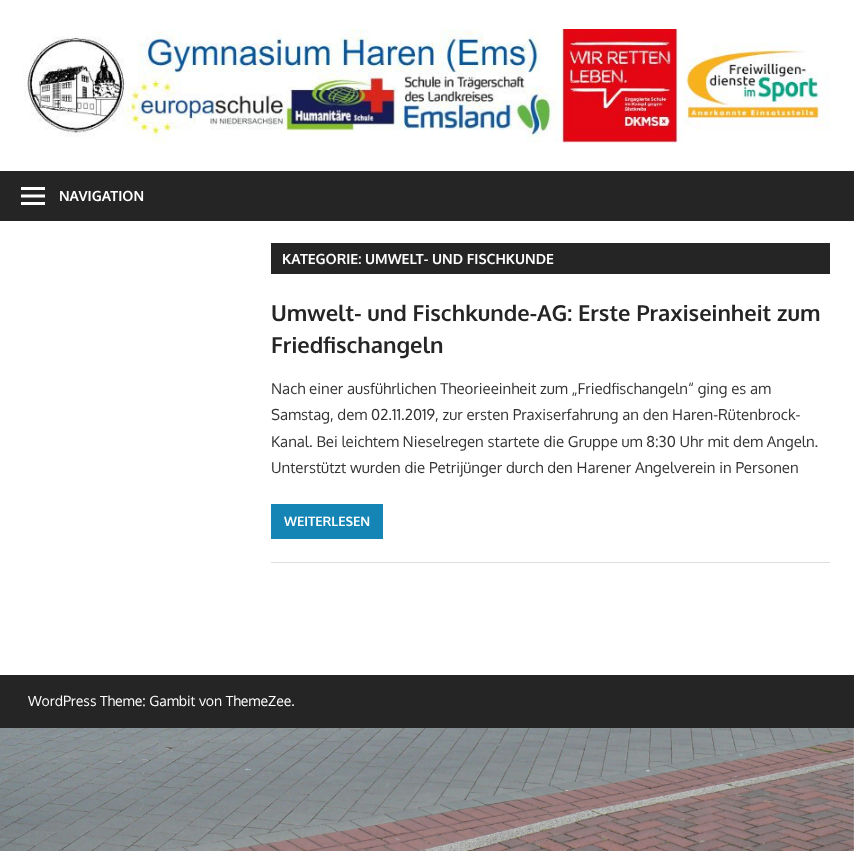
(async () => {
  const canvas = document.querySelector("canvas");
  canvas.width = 854;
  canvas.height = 851;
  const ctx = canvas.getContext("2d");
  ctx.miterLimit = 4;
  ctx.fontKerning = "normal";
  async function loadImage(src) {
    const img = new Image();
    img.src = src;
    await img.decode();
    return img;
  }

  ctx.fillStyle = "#ffffff";
  ctx.fillRect(0, 0, 854, 851);
  ctx.drawImage(await loadImage("img/1.png"), 0, 728, 854, 123);
  ctx.drawImage(await loadImage("img/2.png"), 23, 29, 806, 114);
  ctx.fillStyle = "#252525";
  ctx.fillRect(0, 171, 854, 50);
  ctx.drawImage(await loadImage("img/3.png"), 21, 187, 24, 18);
  for (const [x, y, w, h, color] of [
    [271, 243, 559, 31, "#252525"],
    [271, 562, 559, 1, "#dddddd"],
    [271, 504, 112, 35, "#1585b5"],
    [0, 675, 854, 53, "#252525"],
  ]) {
    ctx.fillStyle = color;
    ctx.fillRect(x, y, w, h);
  }
  ctx.font = "bold 14px Oxygen";
  ctx.fillStyle = "#ffffff";
  ctx.fillText("NAVIGATION", 59, 201);
  ctx.fillText("KATEGORIE: UMWELT- UND FISCHKUNDE", 282, 264);
  ctx.font = "bold 22px Oxygen";
  ctx.fillStyle = "#252525";
  ctx.fillText("Umwelt- und Fischkunde-AG: Erste Praxiseinheit zum", 271, 321);
  ctx.fillText("Friedfischangeln", 271, 353);
  ctx.font = "15px Oxygen";
  ctx.fillStyle = "#333333";
  for (const [text, x, y] of [
    ["Nach einer ausführlichen Theorieeinheit zum „Friedfischangeln“ ging es am", 271, 394],
    ["Samstag, dem 02.11.2019, zur ersten Praxiserfahrung an den Haren-Rütenbrock-", 271, 420],
    ["Kanal. Bei leichtem Nieselregen startete die Gruppe um 8:30 Uhr mit dem Angeln.", 271, 447],
    ["Unterstützt wurden die Petrijünger durch den Harener Angelverein in Personen", 271, 473],
  ]) {
    ctx.fillText(text, x, y);
  }
  ctx.font = "bold 13px Oxygen";
  ctx.fillStyle = "#ffffff";
  ctx.fillText("WEITERLESEN", 284, 526);
  ctx.font = "14px Oxygen";
  ctx.fillText("WordPress Theme: Gambit von ThemeZee.", 28, 706);
})();
